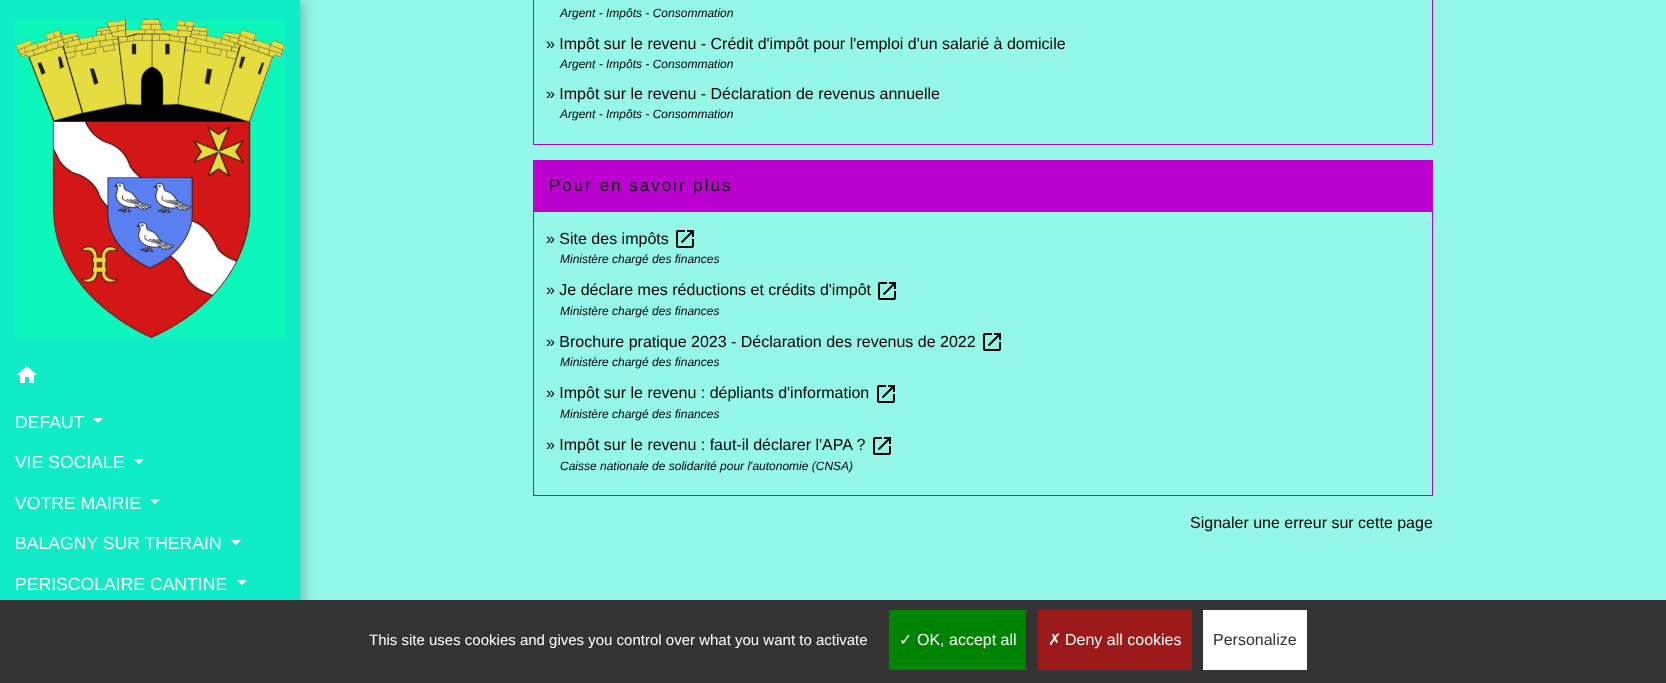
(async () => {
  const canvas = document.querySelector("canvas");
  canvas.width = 1666;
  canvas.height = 683;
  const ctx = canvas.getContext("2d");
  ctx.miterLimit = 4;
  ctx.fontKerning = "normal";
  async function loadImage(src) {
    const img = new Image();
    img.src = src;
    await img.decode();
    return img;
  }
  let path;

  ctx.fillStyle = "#94f7e7";
  ctx.fillRect(0, 0, 1666, 683);
  ctx.fillStyle = "rgba(0, 0, 0, 0.3)";
  ctx.filter = "blur(6.5px)";
  ctx.beginPath();
  ctx.rect(2, 2, 300, 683);
  ctx.fill();
  ctx.filter = "none";
  ctx.fillStyle = "#10ebc8";
  ctx.fillRect(0, 0, 300, 600);
  ctx.drawImage(await loadImage("img/1.png"), 15, 18, 270, 320);
  ctx.drawImage(await loadImage("img/2.png"), 17, 366, 20, 17);
  ctx.fillStyle = "#ffffff";
  path = new Path2D("M93 418H103L98 423Z");
  ctx.fill(path);
  path = new Path2D("M134 459H144L139 464Z");
  ctx.fill(path);
  path = new Path2D("M150 499H160L155 504Z");
  ctx.fill(path);
  path = new Path2D("M231 540H241L236 545Z");
  ctx.fill(path);
  path = new Path2D("M237 580H247L242 585Z");
  ctx.fill(path);
  ctx.strokeStyle = "#bb00d0";
  ctx.strokeRect(533.5, -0.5, 899, 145);
  ctx.strokeRect(533.5, 160.5, 899, 335);
  ctx.fillStyle = "#bb00d0";
  ctx.fillRect(534, 161, 898, 51);
  ctx.drawImage(await loadImage("img/3.png"), 676, 230, 18, 18);
  ctx.drawImage(await loadImage("img/3.png"), 878, 282, 18, 18);
  ctx.drawImage(await loadImage("img/3.png"), 983, 333, 18, 18);
  ctx.drawImage(await loadImage("img/3.png"), 877, 385, 18, 18);
  ctx.drawImage(await loadImage("img/3.png"), 873, 437, 18, 18);
  for (const [x, y, w, h, color] of [
    [0, 600, 1666, 83, "#333333"],
    [889, 610, 137, 60, "#008300"],
    [1038, 610, 154, 60, "#9c1a1a"],
    [1203, 610, 104, 60, "#ffffff"],
  ]) {
    ctx.fillStyle = color;
    ctx.fillRect(x, y, w, h);
  }
  ctx.font = "17.6px Liberation Sans";
  for (const [text, x, y] of [
    ["DEFAUT", 15, 428],
    ["VIE SOCIALE", 15, 468],
    ["VOTRE MAIRIE", 15, 509],
    ["BALAGNY SUR THERAIN", 15, 549],
    ["PERISCOLAIRE CANTINE", 15, 590],
  ]) {
    ctx.fillText(text, x, y);
  }
  ctx.font = "italic 12px Liberation Sans";
  ctx.fillStyle = "#000000";
  ctx.fillText("Argent - Impôts - Consommation", 560, 17);
  ctx.font = "16px Liberation Sans";
  ctx.fillText("» Impôt sur le revenu - Crédit d'impôt pour l'emploi d'un salarié à domicile", 546, 49);
  ctx.font = "italic 12px Liberation Sans";
  ctx.fillText("Argent - Impôts - Consommation", 560, 68);
  ctx.font = "16px Liberation Sans";
  ctx.fillText("» Impôt sur le revenu - Déclaration de revenus annuelle", 546, 99);
  ctx.font = "italic 12px Liberation Sans";
  ctx.fillText("Argent - Impôts - Consommation", 560, 118);
  ctx.letterSpacing = "2px";
  ctx.font = "17px Liberation Sans";
  ctx.fillText("Pour en savoir plus", 549, 191);
  ctx.letterSpacing = "0px";
  ctx.font = "16px Liberation Sans";
  ctx.fillText("» Site des impôts", 546, 244);
  ctx.font = "italic 12px Liberation Sans";
  ctx.fillText("Ministère chargé des finances", 560, 263);
  ctx.font = "16px Liberation Sans";
  ctx.fillText("» Je déclare mes réductions et crédits d'impôt", 546, 295);
  ctx.font = "italic 12px Liberation Sans";
  ctx.fillText("Ministère chargé des finances", 560, 315);
  ctx.font = "16px Liberation Sans";
  ctx.fillText("» Brochure pratique 2023 - Déclaration des revenus de 2022", 546, 347);
  ctx.font = "italic 12px Liberation Sans";
  ctx.fillText("Ministère chargé des finances", 560, 366);
  ctx.font = "16px Liberation Sans";
  ctx.fillText("» Impôt sur le revenu : dépliants d'information", 546, 398);
  ctx.font = "italic 12px Liberation Sans";
  ctx.fillText("Ministère chargé des finances", 560, 418);
  ctx.font = "16px Liberation Sans";
  ctx.fillText("» Impôt sur le revenu : faut-il déclarer l'APA ?", 546, 450);
  ctx.font = "italic 12px Liberation Sans";
  ctx.fillText("Caisse nationale de solidarité pour l'autonomie (CNSA)", 560, 470);
  ctx.font = "16px Liberation Sans";
  ctx.fillText("Signaler une erreur sur cette page", 1190, 528);
  ctx.font = "15px Liberation Sans";
  ctx.fillStyle = "#ffffff";
  ctx.fillText("This site uses cookies and gives you control over what you want to activate", 369, 645);
  ctx.font = "16px DejaVu Sans";
  ctx.fillText("✓", 899, 645);
  ctx.font = "16px Liberation Sans";
  ctx.fillText("OK, accept all", 917, 645);
  ctx.font = "16px DejaVu Sans";
  ctx.fillText("✗", 1048, 645);
  ctx.font = "16px Liberation Sans";
  ctx.fillText("Deny all cookies", 1065, 645);
  ctx.fillStyle = "#333333";
  ctx.fillText("Personalize", 1213, 645);
})();
